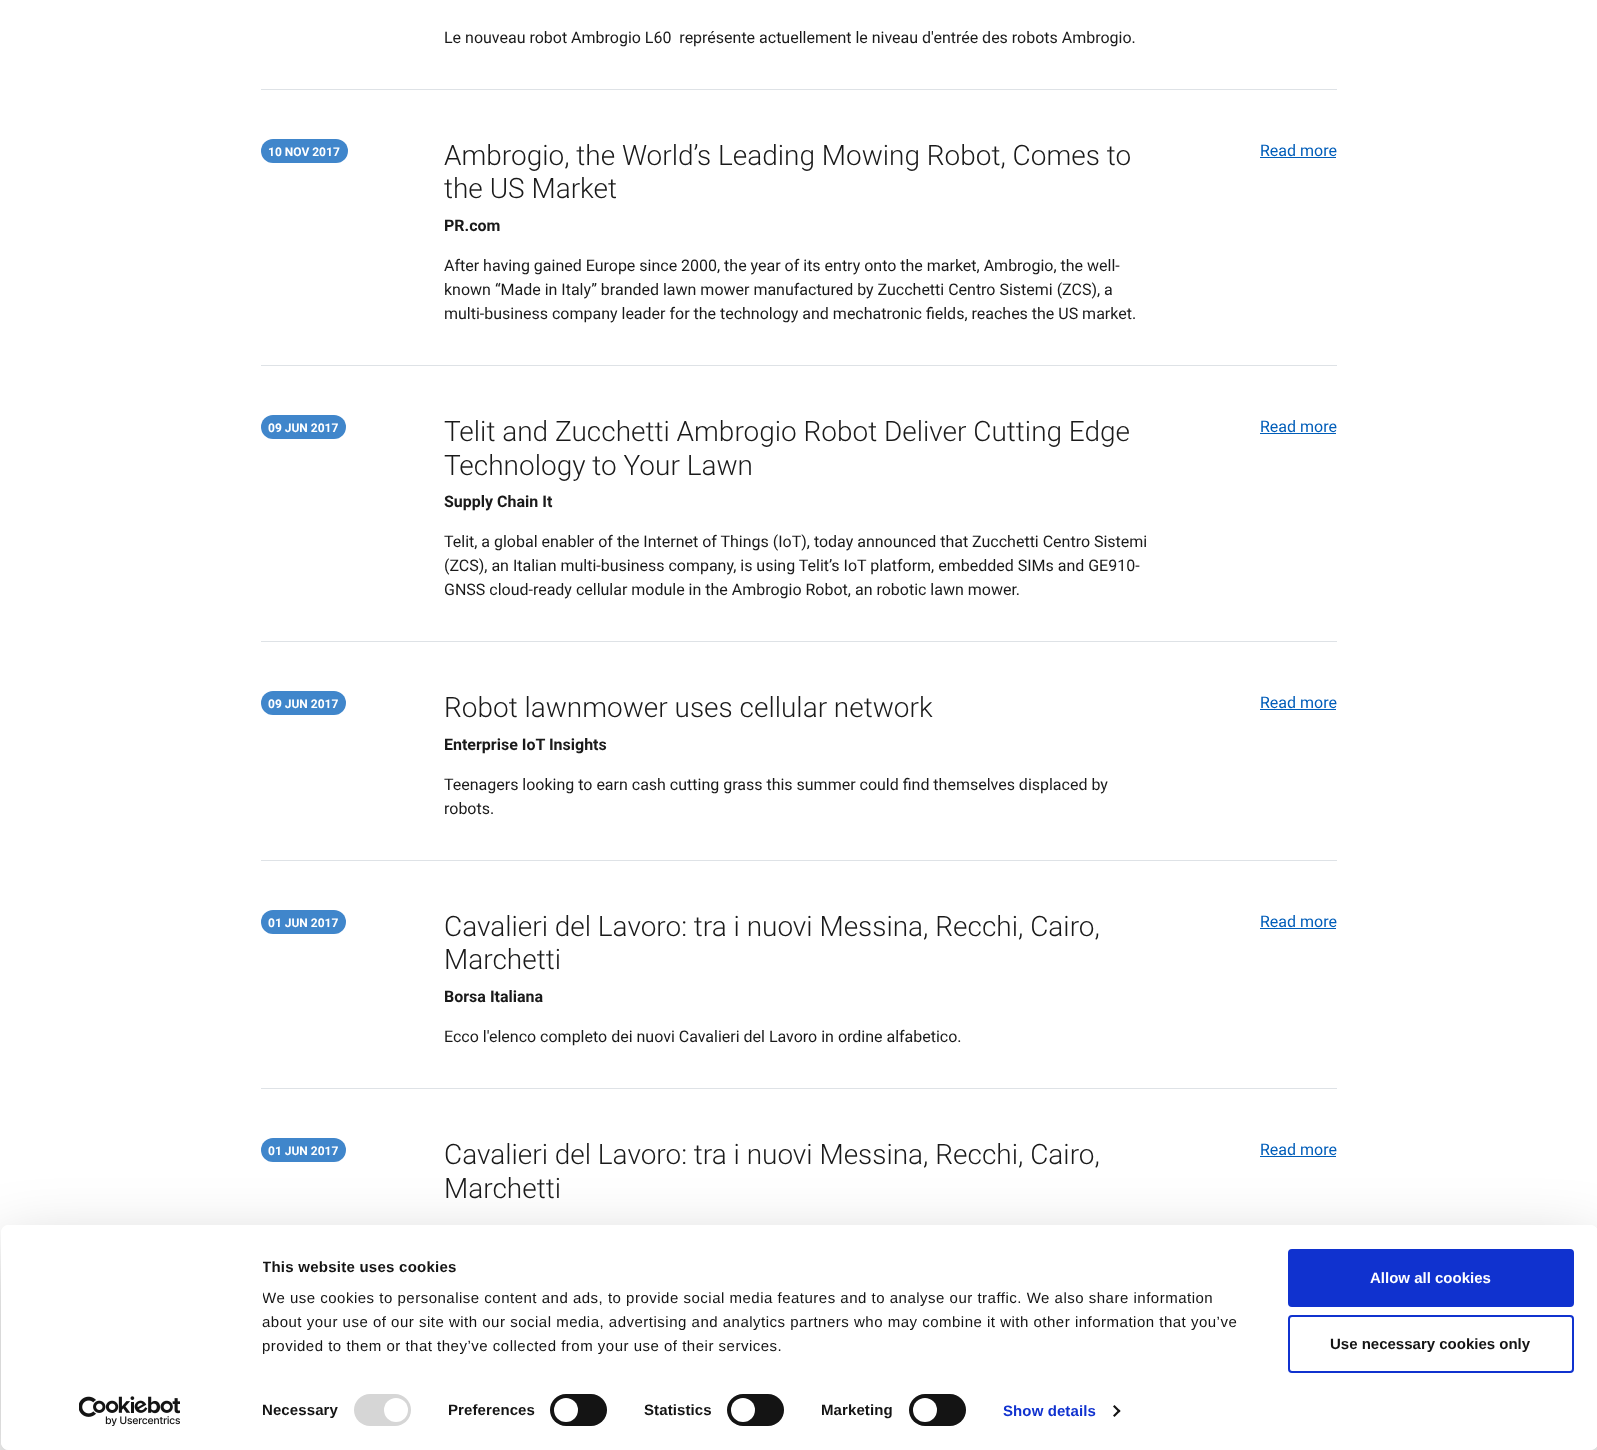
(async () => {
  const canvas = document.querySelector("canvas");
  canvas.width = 1597;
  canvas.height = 1450;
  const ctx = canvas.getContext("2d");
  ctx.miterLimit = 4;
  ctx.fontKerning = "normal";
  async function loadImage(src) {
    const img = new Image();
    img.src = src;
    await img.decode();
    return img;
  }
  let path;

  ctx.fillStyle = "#ffffff";
  ctx.fillRect(0, 0, 1597, 1450);
  ctx.fillStyle = "#dee2e6";
  ctx.fillRect(261, 89, 1076, 1);
  ctx.fillRect(261, 365, 1076, 1);
  ctx.fillStyle = "#4086cb";
  ctx.beginPath();
  ctx.roundRect(261, 139, 87, 24, 12);
  ctx.fill();
  ctx.fillStyle = "#005db9";
  ctx.fillRect(1260, 157, 76, 1);
  ctx.fillStyle = "#dee2e6";
  ctx.fillRect(261, 641, 1076, 1);
  ctx.fillStyle = "#4086cb";
  ctx.beginPath();
  ctx.roundRect(261, 415, 85, 24, 12);
  ctx.fill();
  ctx.fillStyle = "#005db9";
  ctx.fillRect(1260, 433, 76, 1);
  ctx.fillStyle = "#dee2e6";
  ctx.fillRect(261, 860, 1076, 1);
  ctx.fillStyle = "#4086cb";
  ctx.beginPath();
  ctx.roundRect(261, 691, 85, 24, 12);
  ctx.fill();
  ctx.fillStyle = "#005db9";
  ctx.fillRect(1260, 709, 76, 1);
  ctx.fillStyle = "#dee2e6";
  ctx.fillRect(261, 1088, 1076, 1);
  ctx.fillStyle = "#4086cb";
  ctx.beginPath();
  ctx.roundRect(261, 910, 85, 24, 12);
  ctx.fill();
  ctx.fillStyle = "#005db9";
  ctx.fillRect(1260, 928, 76, 1);
  ctx.fillStyle = "#4086cb";
  ctx.beginPath();
  ctx.roundRect(261, 1138, 85, 24, 12);
  ctx.fill();
  ctx.fillStyle = "#005db9";
  ctx.fillRect(1260, 1156, 76, 1);
  ctx.save();
  path = new Path2D("M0 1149H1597V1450H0ZM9 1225H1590C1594.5 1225 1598 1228.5 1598 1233V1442C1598 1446.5 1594.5 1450 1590 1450H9C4.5 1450 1 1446.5 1 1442V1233C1 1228.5 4.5 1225 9 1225Z");
  ctx.clip(path, "evenodd");
  ctx.fillStyle = "rgba(0, 0, 0, 0.3)";
  ctx.filter = "blur(35px)";
  ctx.beginPath();
  ctx.roundRect(1, 1255, 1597, 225, 8);
  ctx.fill();
  ctx.filter = "none";
  ctx.restore();
  ctx.fillStyle = "#ffffff";
  ctx.beginPath();
  ctx.roundRect(1, 1225, 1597, 225, 8);
  ctx.fill();
  ctx.fillStyle = "#d6d6d6";
  ctx.beginPath();
  ctx.roundRect(354, 1394, 57, 32, 16);
  ctx.fill();
  ctx.fillStyle = "#ffffff";
  ctx.beginPath();
  ctx.arc(396, 1410, 12, 0, Math.PI * 2);
  ctx.fill();
  ctx.fillStyle = "#141414";
  ctx.beginPath();
  ctx.roundRect(550, 1394, 57, 32, 16);
  ctx.fill();
  ctx.fillStyle = "#ffffff";
  ctx.beginPath();
  ctx.arc(566, 1410, 12, 0, Math.PI * 2);
  ctx.fill();
  ctx.fillStyle = "#141414";
  ctx.beginPath();
  ctx.roundRect(727, 1394, 57, 32, 16);
  ctx.fill();
  ctx.fillStyle = "#ffffff";
  ctx.beginPath();
  ctx.arc(743, 1410, 12, 0, Math.PI * 2);
  ctx.fill();
  ctx.fillStyle = "#141414";
  ctx.beginPath();
  ctx.roundRect(909, 1394, 57, 32, 16);
  ctx.fill();
  ctx.fillStyle = "#ffffff";
  ctx.beginPath();
  ctx.arc(925, 1410, 12, 0, Math.PI * 2);
  ctx.fill();
  ctx.fillStyle = "#141414";
  path = new Path2D("M1114.5 1405L1120.5 1411L1119 1412.5L1113 1406.5Z");
  ctx.fill(path);
  path = new Path2D("M1119 1409.5L1120.5 1411L1114.5 1417L1113 1415.5Z");
  ctx.fill(path);
  ctx.fillStyle = "#1032cf";
  ctx.beginPath();
  ctx.roundRect(1289, 1250, 284, 56, 3);
  ctx.fill();
  ctx.strokeStyle = "#1032cf";
  ctx.lineWidth = 2;
  ctx.stroke();
  ctx.beginPath();
  ctx.roundRect(1289, 1316, 284, 56, 3);
  ctx.stroke();
  ctx.drawImage(await loadImage("img/1.png"), 79, 1396, 101, 30);
  ctx.font = "16px Roboto";
  ctx.fillStyle = "#1a1a1a";
  ctx.fillText("Le nouveau robot Ambrogio L60  représente actuellement le niveau d'entrée des robots Ambrogio.", 444, 43);
  ctx.font = "bold 12px Roboto";
  ctx.fillStyle = "#ffffff";
  ctx.fillText("10 NOV 2017", 268, 156);
  ctx.font = "300 28px Roboto";
  ctx.fillStyle = "#1a1a1a";
  ctx.fillText("Ambrogio, the World’s Leading Mowing Robot, Comes to", 444, 165);
  ctx.fillText("the US Market", 444, 198);
  ctx.font = "bold 16px Roboto";
  ctx.fillText("PR.com", 444, 231);
  ctx.font = "16px Roboto";
  for (const [text, x, y] of [
    ["After having gained Europe since 2000, the year of its entry onto the market, Ambrogio, the well-", 444, 271],
    ["known “Made in Italy” branded lawn mower manufactured by Zucchetti Centro Sistemi (ZCS), a", 444, 295],
    ["multi-business company leader for the technology and mechatronic fields, reaches the US market.", 444, 319],
  ]) {
    ctx.fillText(text, x, y);
  }
  ctx.fillStyle = "#005db9";
  ctx.fillText("Read more", 1260, 156);
  ctx.font = "bold 12px Roboto";
  ctx.fillStyle = "#ffffff";
  ctx.fillText("09 JUN 2017", 268, 432);
  ctx.font = "300 28px Roboto";
  ctx.fillStyle = "#1a1a1a";
  ctx.fillText("Telit and Zucchetti Ambrogio Robot Deliver Cutting Edge", 444, 441);
  ctx.fillText("Technology to Your Lawn", 444, 475);
  ctx.font = "bold 16px Roboto";
  ctx.fillText("Supply Chain It", 444, 507);
  ctx.font = "16px Roboto";
  for (const [text, x, y] of [
    ["Telit, a global enabler of the Internet of Things (IoT), today announced that Zucchetti Centro Sistemi", 444, 547],
    ["(ZCS), an Italian multi-business company, is using Telit’s IoT platform, embedded SIMs and GE910-", 444, 571],
    ["GNSS cloud-ready cellular module in the Ambrogio Robot, an robotic lawn mower.", 444, 595],
  ]) {
    ctx.fillText(text, x, y);
  }
  ctx.fillStyle = "#005db9";
  ctx.fillText("Read more", 1260, 432);
  ctx.font = "bold 12px Roboto";
  ctx.fillStyle = "#ffffff";
  ctx.fillText("09 JUN 2017", 268, 708);
  ctx.font = "300 28px Roboto";
  ctx.fillStyle = "#1a1a1a";
  ctx.fillText("Robot lawnmower uses cellular network", 444, 717);
  ctx.font = "bold 16px Roboto";
  ctx.fillText("Enterprise IoT Insights", 444, 750);
  ctx.font = "16px Roboto";
  ctx.fillText("Teenagers looking to earn cash cutting grass this summer could find themselves displaced by", 444, 790);
  ctx.fillText("robots.", 444, 814);
  ctx.fillStyle = "#005db9";
  ctx.fillText("Read more", 1260, 708);
  ctx.font = "bold 12px Roboto";
  ctx.fillStyle = "#ffffff";
  ctx.fillText("01 JUN 2017", 268, 927);
  ctx.font = "300 28px Roboto";
  ctx.fillStyle = "#1a1a1a";
  ctx.fillText("Cavalieri del Lavoro: tra i nuovi Messina, Recchi, Cairo,", 444, 936);
  ctx.fillText("Marchetti", 444, 969);
  ctx.font = "bold 16px Roboto";
  ctx.fillText("Borsa Italiana", 444, 1002);
  ctx.font = "16px Roboto";
  ctx.fillText("Ecco l'elenco completo dei nuovi Cavalieri del Lavoro in ordine alfabetico.", 444, 1042);
  ctx.fillStyle = "#005db9";
  ctx.fillText("Read more", 1260, 927);
  ctx.font = "bold 12px Roboto";
  ctx.fillStyle = "#ffffff";
  ctx.fillText("01 JUN 2017", 268, 1155);
  ctx.font = "300 28px Roboto";
  ctx.fillStyle = "#1a1a1a";
  ctx.fillText("Cavalieri del Lavoro: tra i nuovi Messina, Recchi, Cairo,", 444, 1164);
  ctx.fillText("Marchetti", 444, 1198);
  ctx.font = "16px Roboto";
  ctx.fillStyle = "#005db9";
  ctx.fillText("Read more", 1260, 1155);
  ctx.save();
  ctx.beginPath();
  ctx.rect(263, 1255, 996, 103);
  ctx.clip();
  ctx.letterSpacing = "0.25px";
  ctx.font = "bold 15px Liberation Sans";
  ctx.fillStyle = "#141414";
  ctx.fillText("This website uses cookies", 262, 1272);
  ctx.letterSpacing = "0.5px";
  ctx.font = "15px Liberation Sans";
  ctx.fillText("We use cookies to personalise content and ads, to provide social media features and to analyse our traffic. We also share information", 262, 1303);
  ctx.restore();
  ctx.letterSpacing = "0.5px";
  ctx.font = "15px Liberation Sans";
  ctx.fillStyle = "#141414";
  ctx.fillText("about your use of our site with our social media, advertising and analytics partners who may combine it with other information that you’ve", 262, 1327);
  ctx.fillText("provided to them or that they’ve collected from your use of their services.", 262, 1351);
  ctx.letterSpacing = "0.1px";
  ctx.font = "bold 15px Liberation Sans";
  for (const [text, x, y] of [
    ["Necessary", 262, 1415],
    ["Preferences", 448, 1415],
    ["Statistics", 644, 1415],
    ["Marketing", 821, 1415],
  ]) {
    ctx.fillText(text, x, y);
  }
  ctx.fillStyle = "#1032cf";
  ctx.fillText("Show details", 1003, 1416);
  ctx.letterSpacing = "0px";
  ctx.fillStyle = "#ffffff";
  ctx.fillText("Allow all cookies", 1370, 1283);
  ctx.fillStyle = "#141414";
  ctx.fillText("Use necessary cookies only", 1330, 1349);
})();
